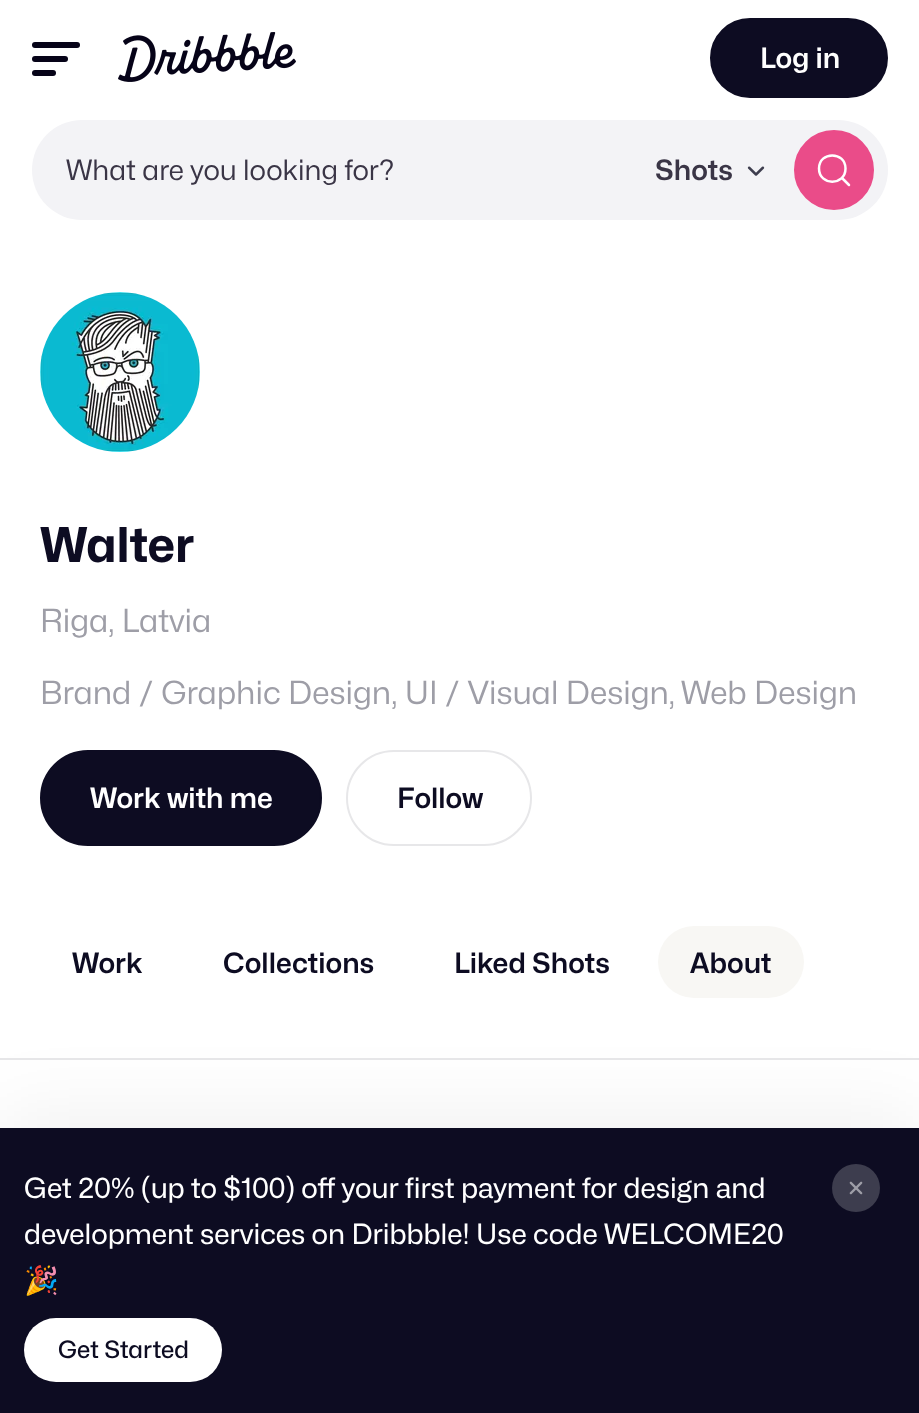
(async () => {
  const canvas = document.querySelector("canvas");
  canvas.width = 919;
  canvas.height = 1413;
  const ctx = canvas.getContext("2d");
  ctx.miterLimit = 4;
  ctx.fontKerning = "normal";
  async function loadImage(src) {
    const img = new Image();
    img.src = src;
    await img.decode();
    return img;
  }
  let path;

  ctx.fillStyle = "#ffffff";
  ctx.fillRect(0, 0, 919, 1413);
  ctx.fillStyle = "#060318";
  ctx.beginPath();
  ctx.roundRect(32, 42, 48, 6, 3);
  ctx.fill();
  ctx.beginPath();
  ctx.roundRect(32, 56, 36, 6, 3);
  ctx.fill();
  ctx.beginPath();
  ctx.roundRect(32, 70, 24, 6, 3);
  ctx.fill();
  ctx.drawImage(await loadImage("img/1.png"), 118, 32, 178, 50);
  ctx.fillStyle = "#0d0c22";
  ctx.beginPath();
  ctx.roundRect(711, 19, 176, 78, 39);
  ctx.fill();
  ctx.strokeStyle = "#0d0c22";
  ctx.lineWidth = 2;
  ctx.stroke();
  ctx.fillStyle = "#f3f3f6";
  ctx.beginPath();
  ctx.roundRect(32, 120, 856, 100, 50);
  ctx.fill();
  ctx.drawImage(await loadImage("img/2.png"), 747, 166, 18, 10);
  ctx.fillStyle = "#ea4c89";
  ctx.beginPath();
  ctx.arc(834, 170, 39, 0, Math.PI * 2);
  ctx.fill();
  ctx.strokeStyle = "#ea4c89";
  ctx.stroke();
  path = new Path2D("M849 185L842 178M845.5 168.5C845.5 186 819 186 819 168.5C819 151 845.5 151 845.5 168.5Z");
  ctx.strokeStyle = "#ffffff";
  ctx.lineWidth = 2.5;
  ctx.lineCap = "round";
  ctx.lineJoin = "round";
  ctx.stroke(path);
  ctx.fillStyle = "#fdfcfb";
  ctx.beginPath();
  ctx.arc(120, 372, 80, 0, Math.PI * 2);
  ctx.fill();
  ctx.drawImage(await loadImage("img/3.png"), 40, 292, 160, 160);
  ctx.fillStyle = "#0d0c22";
  ctx.beginPath();
  ctx.roundRect(41, 751, 280, 94, 47);
  ctx.fill();
  ctx.strokeStyle = "#0d0c22";
  ctx.lineWidth = 2;
  ctx.lineJoin = "miter";
  ctx.stroke();
  ctx.beginPath();
  ctx.roundRect(347, 751, 184, 94, 47);
  ctx.strokeStyle = "#e7e7e9";
  ctx.stroke();
  ctx.fillStyle = "#e7e7e9";
  ctx.fillRect(0, 1058, 919, 2);
  ctx.fillStyle = "#f8f7f4";
  ctx.beginPath();
  ctx.roundRect(658, 926, 146, 72, 36);
  ctx.fill();
  ctx.fillStyle = "rgba(0, 0, 0, 0.06)";
  ctx.filter = "blur(40px)";
  ctx.beginPath();
  ctx.rect(0, 1116, 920, 286);
  ctx.fill();
  ctx.filter = "none";
  ctx.fillStyle = "#0d0c22";
  ctx.fillRect(0, 1128, 919, 285);
  ctx.fillStyle = "#ffffff";
  ctx.beginPath();
  ctx.roundRect(24, 1318, 198, 64, 32);
  ctx.fill();
  ctx.fillStyle = "#3d3d4e";
  ctx.beginPath();
  ctx.arc(856, 1188, 24, 0, Math.PI * 2);
  ctx.fill();
  ctx.drawImage(await loadImage("img/4.png"), 849, 1181, 14, 14);
  ctx.font = "600 28px Mona Sans";
  ctx.fillStyle = "#ffffff";
  ctx.fillText("Log in", 760, 68);
  ctx.font = "28px Mona Sans";
  ctx.fillStyle = "#3a3546";
  ctx.fillText("What are you looking for?", 66, 180);
  ctx.font = "600 28px Mona Sans";
  ctx.fillText("Shots", 655, 180);
  ctx.font = "bold 48px Mona Sans";
  ctx.fillStyle = "#0d0c22";
  ctx.fillText("Walter", 40, 562);
  ctx.font = "32px Mona Sans";
  ctx.fillStyle = "#9e9ea7";
  ctx.fillText("Riga, Latvia", 40, 632);
  ctx.fillText("Brand / Graphic Design, UI / Visual Design,", 40, 704);
  ctx.fillText("Web Design", 681, 704);
  ctx.font = "600 28px Mona Sans";
  ctx.fillStyle = "#ffffff";
  ctx.fillText("Work with me", 90, 808);
  ctx.fillStyle = "#0d0c22";
  for (const [text, x, y] of [
    ["Follow", 397, 808],
    ["Work", 72, 973],
    ["Collections", 223, 973],
    ["Liked Shots", 454, 973],
    ["About", 690, 973],
  ]) {
    ctx.fillText(text, x, y);
  }
  ctx.font = "28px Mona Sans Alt";
  ctx.fillStyle = "#ffffff";
  ctx.fillText("Get 20% (up to $100) off your first payment for design and", 24, 1198);
  ctx.font = "28px 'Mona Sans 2'";
  ctx.fillText("development services on Dribbble! Use code WELCOME20", 24, 1244);
  ctx.font = "28px Noto Color Emoji";
  ctx.fillText("🎉", 24, 1290);
  ctx.font = "500 24px Mona Sans";
  ctx.fillStyle = "#0d0c22";
  ctx.fillText("Get Started", 58, 1358);
})();
